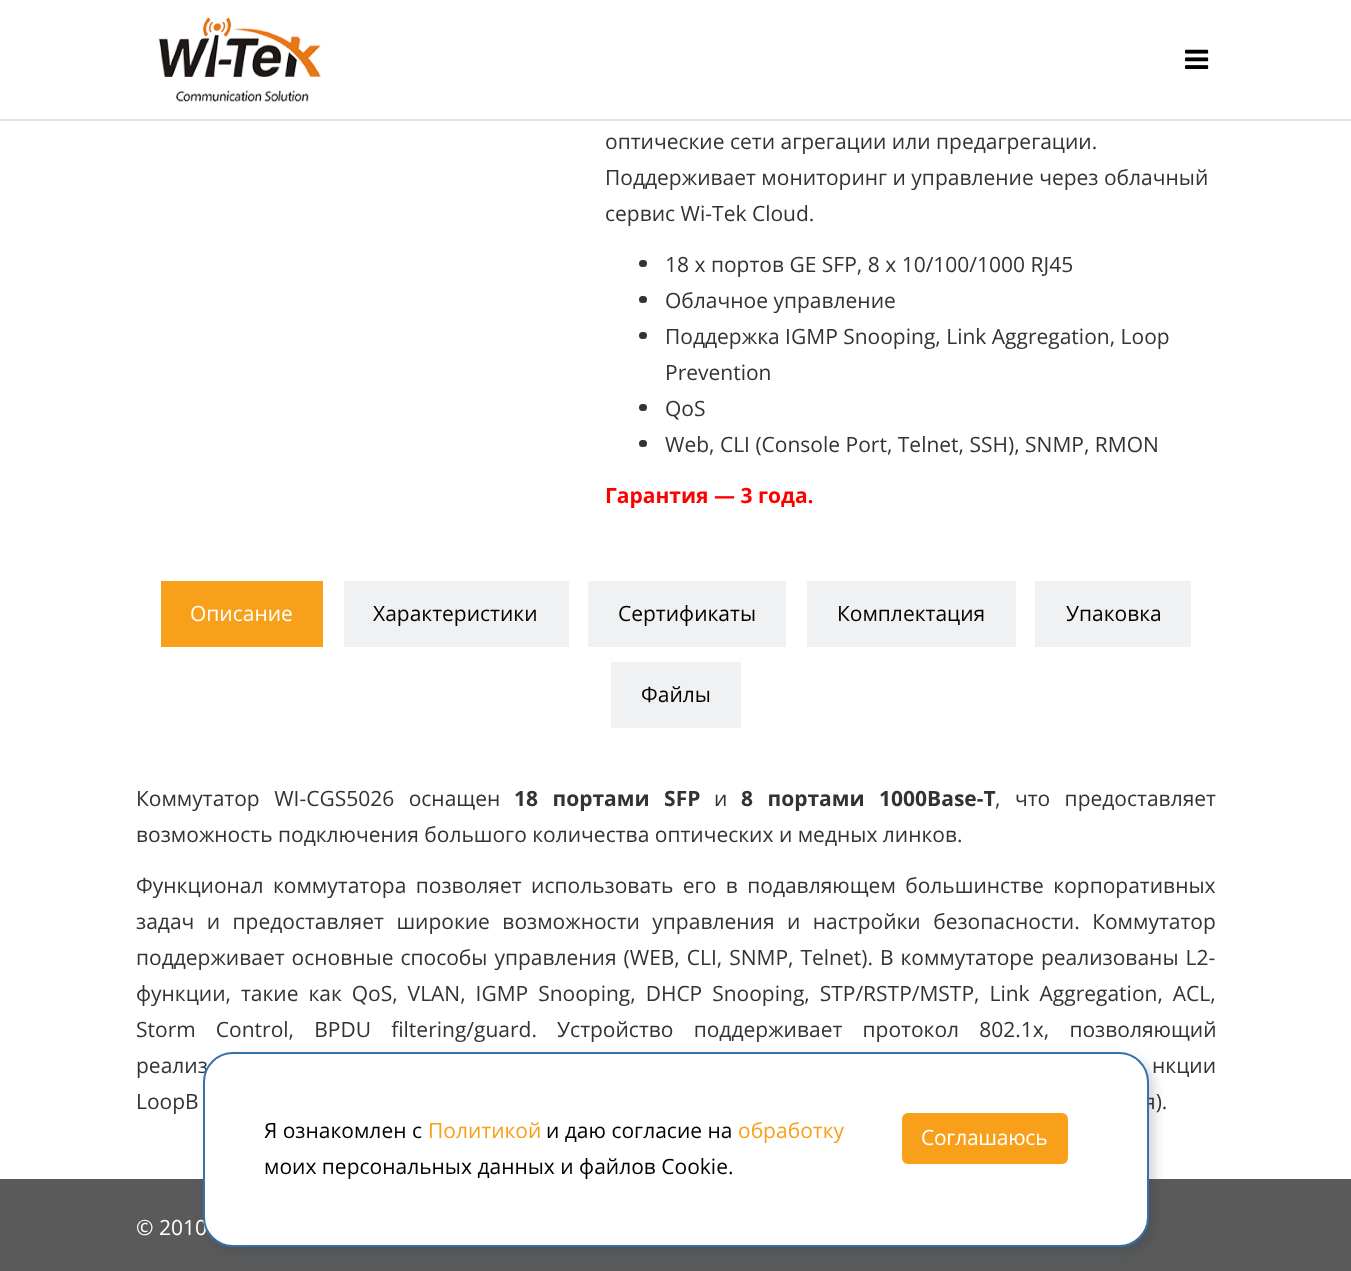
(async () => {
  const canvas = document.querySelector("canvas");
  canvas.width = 1351;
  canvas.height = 1271;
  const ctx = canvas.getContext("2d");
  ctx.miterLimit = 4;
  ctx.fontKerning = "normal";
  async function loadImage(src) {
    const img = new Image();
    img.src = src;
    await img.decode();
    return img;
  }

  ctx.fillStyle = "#ffffff";
  ctx.fillRect(0, 0, 1351, 1271);
  ctx.fillStyle = "#e1e1e1";
  ctx.fillRect(0, 119, 1351, 2);
  ctx.drawImage(await loadImage("img/1.png"), 158, 17, 163, 85);
  ctx.drawImage(await loadImage("img/2.png"), 1185, 49, 24, 20);
  ctx.fillStyle = "#333333";
  ctx.beginPath();
  ctx.roundRect(639, 260, 8, 7, 3.5);
  ctx.fill();
  ctx.beginPath();
  ctx.roundRect(639, 296, 8, 7, 3.5);
  ctx.fill();
  ctx.beginPath();
  ctx.roundRect(639, 332, 8, 7, 3.5);
  ctx.fill();
  ctx.beginPath();
  ctx.roundRect(639, 404, 8, 7, 3.5);
  ctx.fill();
  ctx.beginPath();
  ctx.roundRect(639, 440, 8, 7, 3.5);
  ctx.fill();
  for (const [x, y, w, h, color] of [
    [161, 581, 162, 66, "#f9a01b"],
    [344, 581, 225, 66, "#f0f1f3"],
    [588, 581, 198, 66, "#f0f1f3"],
    [807, 581, 209, 66, "#f0f1f3"],
    [1035, 581, 156, 66, "#f0f1f3"],
    [611, 662, 130, 66, "#f0f1f3"],
    [0, 1179, 1351, 92, "#5a5a5a"],
  ]) {
    ctx.fillStyle = color;
    ctx.fillRect(x, y, w, h);
  }
  ctx.fillStyle = "rgba(34, 60, 80, 0.2)";
  ctx.filter = "blur(6px)";
  ctx.beginPath();
  ctx.roundRect(209, 1058, 946, 195, 30);
  ctx.fill();
  ctx.filter = "none";
  ctx.font = "21px Open Sans";
  ctx.fillStyle = "#333333";
  for (const [text, x, y] of [
    ["оптические сети агрегации или предагрегации.", 605, 149],
    ["Поддерживает мониторинг и управление через облачный", 605, 185],
    ["сервис Wi-Tek Cloud.", 605, 221],
    ["18 x портов GE SFP, 8 x 10/100/1000 RJ45", 665, 272],
    ["Облачное управление", 665, 308],
    ["Поддержка IGMP Snooping, Link Aggregation, Loop", 665, 344],
    ["Prevention", 665, 380],
    ["QoS", 665, 416],
    ["Web, CLI (Console Port, Telnet, SSH), SNMP, RMON", 665, 452],
  ]) {
    ctx.fillText(text, x, y);
  }
  ctx.font = "bold 21px Open Sans";
  ctx.fillStyle = "#ff0000";
  ctx.fillText("Гарантия — 3 года.", 605, 503);
  ctx.font = "21px Open Sans";
  ctx.fillStyle = "#ffffff";
  ctx.fillText("Описание", 190, 621);
  ctx.fillStyle = "#000000";
  for (const [text, x, y] of [
    ["Характеристики", 373, 621],
    ["Сертификаты", 618, 621],
    ["Комплектация", 837, 621],
    ["Упаковка", 1066, 621],
    ["Файлы", 641, 702],
  ]) {
    ctx.fillText(text, x, y);
  }
  ctx.wordSpacing = "9px";
  ctx.fillStyle = "#333333";
  ctx.fillText("Коммутатор WI-CGS5026 оснащен", 136, 806);
  ctx.font = "bold 21px Open Sans";
  ctx.fillText("18 портами SFP", 514, 806);
  ctx.wordSpacing = "0px";
  ctx.font = "21px Open Sans";
  ctx.fillText("и", 714, 806);
  ctx.wordSpacing = "9px";
  ctx.font = "bold 21px Open Sans";
  ctx.fillText("8 портами 1000Base-T", 741, 806);
  ctx.font = "21px Open Sans";
  ctx.fillText(", что предоставляет", 995, 806);
  ctx.wordSpacing = "0px";
  ctx.fillText("возможность подключения большого количества оптических и медных линков.", 136, 842);
  ctx.wordSpacing = "4px";
  ctx.fillText("Функционал коммутатора позволяет использовать его в подавляющем большинстве корпоративных", 136, 893);
  ctx.wordSpacing = "7px";
  ctx.fillText("задач и предоставляет широкие возможности управления и настройки безопасности. Коммутатор", 136, 929);
  ctx.wordSpacing = "1.5px";
  ctx.fillText("поддерживает основные способы управления (WEB, CLI, SNMP, Telnet). В коммутаторе реализованы L2-", 136, 965);
  ctx.wordSpacing = "4.5px";
  ctx.fillText("функции, такие как QoS, VLAN, IGMP Snooping, DHCP Snooping, STP/RSTP/MSTP, Link Aggregation, ACL,", 136, 1001);
  ctx.wordSpacing = "14.75px";
  ctx.fillText("Storm Control, BPDU filtering/guard. Устройство поддерживает протокол 802.1x, позволяющий", 136, 1037);
  ctx.wordSpacing = "2px";
  ctx.fillText("реализ", 136, 1073);
  ctx.fillText("нкции", 1152, 1073);
  ctx.wordSpacing = "0px";
  ctx.fillText("LoopB", 136, 1109);
  ctx.fillText("я).", 1144, 1109);
  ctx.fillStyle = "#ffffff";
  ctx.fillText("© 2010", 136, 1235);
  ctx.beginPath();
  ctx.roundRect(204, 1053, 944, 193, 29);
  ctx.fill();
  ctx.strokeStyle = "#3871a9";
  ctx.lineWidth = 2;
  ctx.stroke();
  ctx.fillStyle = "#000000";
  ctx.fillText("Я ознакомлен с", 264, 1138);
  ctx.fillStyle = "#f9a01b";
  ctx.fillText("Политикой", 428, 1138);
  ctx.fillStyle = "#000000";
  ctx.fillText("и даю согласие на", 546, 1138);
  ctx.fillStyle = "#f9a01b";
  ctx.fillText("обработку", 738, 1138);
  ctx.fillStyle = "#000000";
  ctx.fillText("моих персональных данных и файлов Cookie.", 264, 1174);
  ctx.fillStyle = "#f9a01b";
  ctx.beginPath();
  ctx.roundRect(902, 1113, 166, 51, 6);
  ctx.fill();
  ctx.letterSpacing = "-0.25px";
  ctx.fillStyle = "#ffffff";
  ctx.fillText("Соглашаюсь", 921, 1145);
})();
